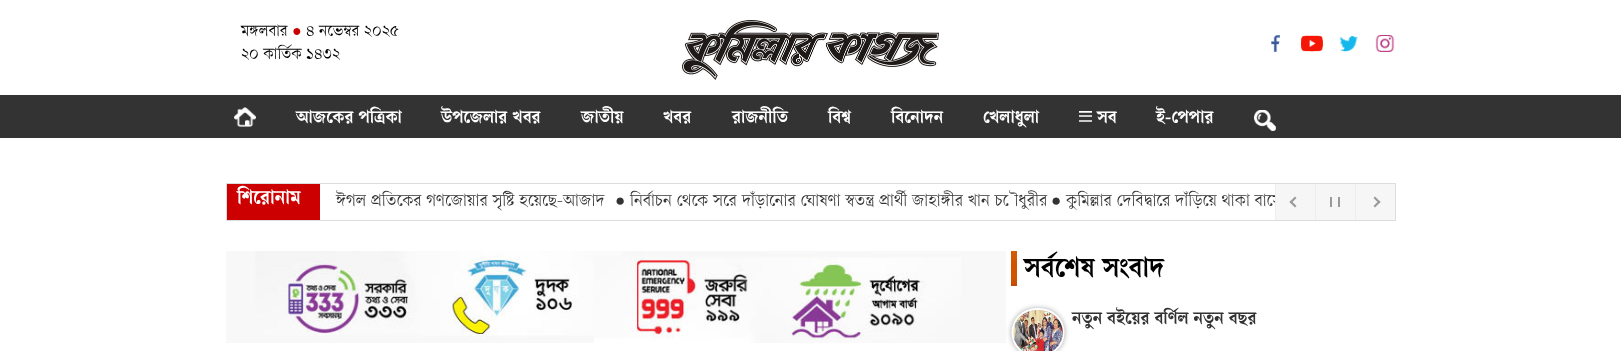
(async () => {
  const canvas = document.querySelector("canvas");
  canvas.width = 1621;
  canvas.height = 351;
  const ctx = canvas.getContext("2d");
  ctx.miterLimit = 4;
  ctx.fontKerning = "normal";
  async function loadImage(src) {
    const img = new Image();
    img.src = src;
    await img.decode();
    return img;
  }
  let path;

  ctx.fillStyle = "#ffffff";
  ctx.fillRect(0, 0, 1621, 351);
  ctx.drawImage(await loadImage("img/1.png"), 682, 20, 257, 60);
  ctx.drawImage(await loadImage("img/2.png"), 1271, 35, 9, 17);
  ctx.drawImage(await loadImage("img/3.png"), 1301, 35, 22, 17);
  ctx.drawImage(await loadImage("img/4.png"), 1339, 36, 19, 16);
  ctx.drawImage(await loadImage("img/5.png"), 1375, 35, 20, 17);
  ctx.fillStyle = "#333333";
  ctx.fillRect(0, 95, 1621, 43);
  ctx.drawImage(await loadImage("img/6.png"), 234, 107, 22, 20);
  ctx.drawImage(await loadImage("img/7.png"), 1079, 111, 13, 11);
  ctx.drawImage(await loadImage("img/8.png"), 1254, 110, 22, 21);
  ctx.strokeStyle = "#dddddd";
  ctx.strokeRect(226.5, 183.5, 1169, 37);
  for (const [x, y, w, h, color] of [
    [227, 184, 93, 36, "#cc0000"],
    [1316, 184, 39, 36, "#f6f6f6"],
    [1315, 184, 1, 36, "#eeeeee"],
    [1338, 197, 2, 10, "#999999"],
    [1330, 197, 2, 10, "#999999"],
    [1356, 184, 39, 36, "#f6f6f6"],
    [1355, 184, 1, 36, "#eeeeee"],
  ]) {
    ctx.fillStyle = color;
    ctx.fillRect(x, y, w, h);
  }
  ctx.fillStyle = "#999999";
  path = new Path2D("M1373.5 198L1375 196.5L1380.5 202L1379 203.5Z");
  ctx.fill(path);
  path = new Path2D("M1373.5 206L1379 200.5L1380.5 202L1375 207.5Z");
  ctx.fill(path);
  ctx.drawImage(await loadImage("img/9.png"), 226, 251, 780, 92);
  ctx.drawImage(await loadImage("img/10.png"), 1011, 251, 6, 35);
  ctx.fillStyle = "rgba(0, 0, 0, 0.3)";
  ctx.filter = "blur(2.5px)";
  ctx.beginPath();
  ctx.roundRect(1011, 308, 54, 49, 24.5);
  ctx.fill();
  ctx.filter = "none";
  path = new Path2D("M1038 309C1072 309 1072 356 1038 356C1004 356 1004 309 1038 309Z");
  ctx.strokeStyle = "#ffffff";
  ctx.lineWidth = 2;
  ctx.stroke(path);
  ctx.drawImage(await loadImage("img/11.png"), 1013, 310, 50, 41);
  ctx.font = "16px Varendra";
  ctx.fillStyle = "#000000";
  ctx.fillText("মঙ্গলবার", 241, 36);
  ctx.font = "16px Liberation Serif";
  ctx.fillStyle = "#cc0000";
  ctx.fillText("●", 292, 36);
  ctx.font = "16px Varendra";
  ctx.fillStyle = "#000000";
  ctx.fillText("৪ নভেম্বর ২০২৫", 306, 36);
  ctx.fillText("২০ কার্তিক ১৪৩২", 241, 59);
  ctx.font = "bold 18px Varendra";
  ctx.fillStyle = "#ffffff";
  for (const [text, x, y] of [
    ["আজকের পত্রিকা", 296, 123],
    ["উপজেলার খবর", 441, 123],
    ["জাতীয়", 581, 123],
    ["খবর", 663, 123],
    ["রাজনীতি", 732, 123],
    ["বিশ্ব", 828, 123],
    ["বিনোদন", 891, 123],
    ["খেলাধুলা", 983, 123],
    ["সব", 1097, 123],
    ["ই-পেপার", 1156, 123],
  ]) {
    ctx.fillText(text, x, y);
  }
  ctx.font = "bold 20px Varendra";
  ctx.fillText("শিরোনাম", 237, 204);
  ctx.font = "17px Varendra";
  ctx.fillStyle = "#333333";
  ctx.fillText("ঈগল প্রতিকের গণজোয়ার সৃষ্টি হয়েছে-আজাদ", 336, 206);
  ctx.font = "17px Liberation Serif";
  ctx.fillText("●", 615, 206);
  ctx.font = "17px Varendra";
  ctx.fillText("নির্বাচন থেকে সরে দাঁড়ানোর ঘোষণা স্বতন্ত্র প্রার্থী জাহাঙ্গীর খান চৌধুরীর", 630, 206);
  ctx.font = "17px Liberation Serif";
  ctx.fillText("●", 1051, 206);
  ctx.font = "17px Varendra";
  ctx.fillText("কুমিল্লার দেবিদ্বারে দাঁড়িয়ে থাকা বাসে", 1066, 206);
  ctx.fillStyle = "#f6f6f6";
  ctx.fillRect(1276, 184, 39, 36);
  ctx.fillStyle = "#eeeeee";
  ctx.fillRect(1275, 184, 1, 36);
  ctx.fillStyle = "#999999";
  path = new Path2D("M1296.5 206L1295 207.5L1289.5 202L1291 200.5Z");
  ctx.fill(path);
  path = new Path2D("M1296.5 198L1291 203.5L1289.5 202L1295 196.5Z");
  ctx.fill(path);
  ctx.font = "bold 28px Varendra";
  ctx.fillStyle = "#000000";
  ctx.fillText("সর্বশেষ সংবাদ", 1024, 277);
  ctx.font = "bold 18px Varendra";
  ctx.fillStyle = "#333333";
  ctx.fillText("নতুন বইয়ের বর্ণিল নতুন বছর", 1072, 324);
})();
